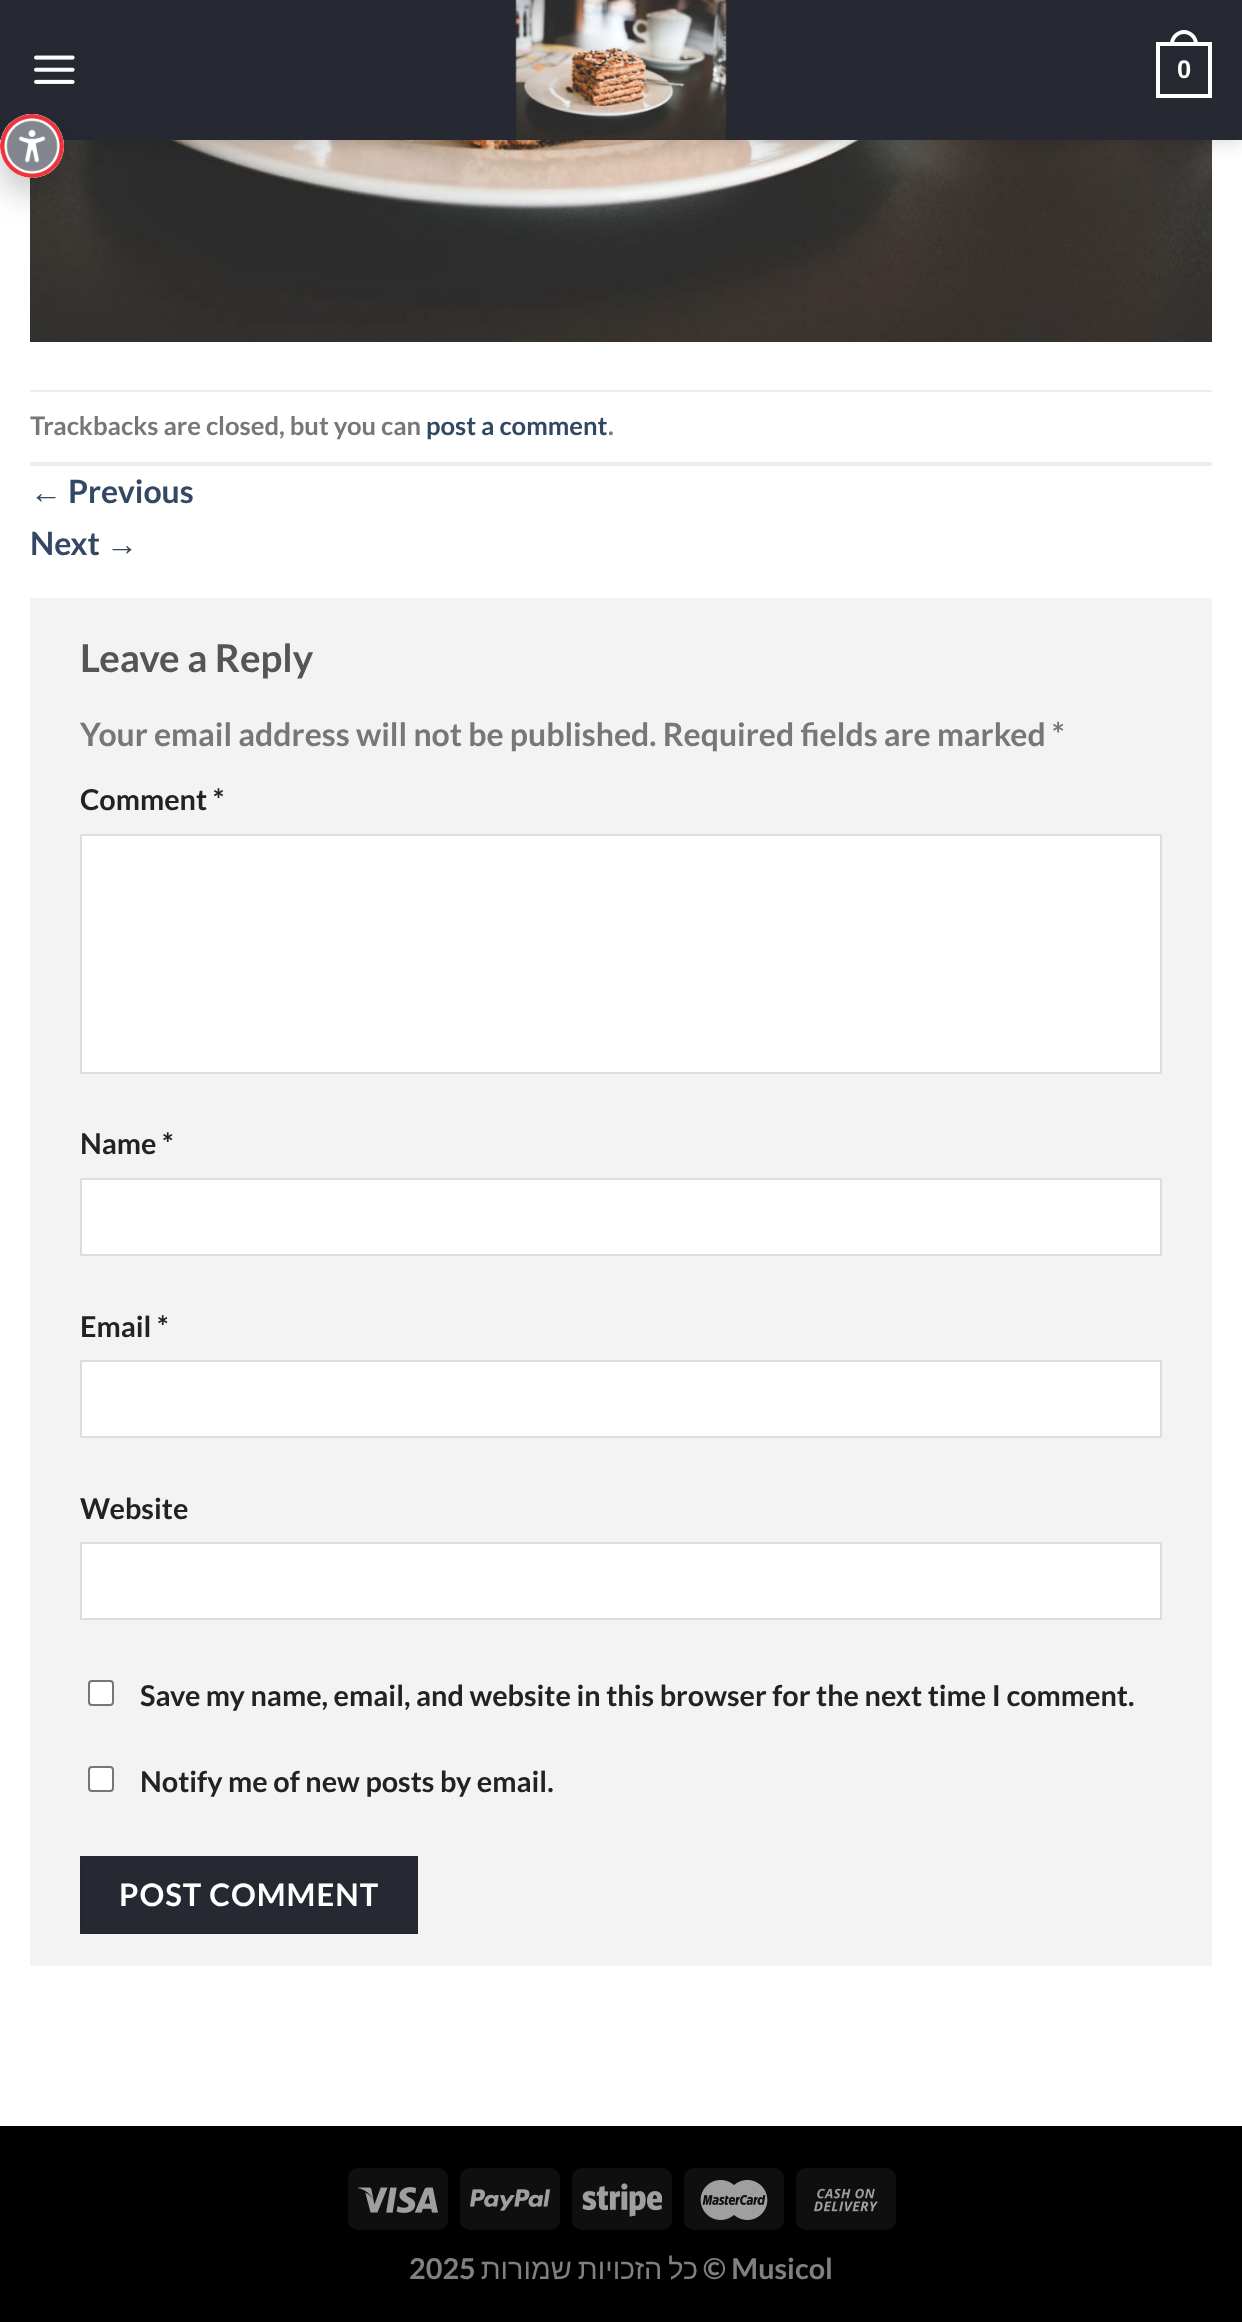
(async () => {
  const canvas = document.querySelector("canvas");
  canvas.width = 1242;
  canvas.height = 2322;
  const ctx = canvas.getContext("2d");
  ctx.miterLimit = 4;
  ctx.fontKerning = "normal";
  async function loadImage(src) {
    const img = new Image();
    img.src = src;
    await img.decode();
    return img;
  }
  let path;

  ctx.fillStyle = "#ffffff";
  ctx.fillRect(0, 0, 1242, 2322);
  ctx.drawImage(await loadImage("img/3.png"), 30, 140, 1182, 202);
  ctx.fillStyle = "rgba(0, 0, 0, 0.15)";
  ctx.filter = "blur(10px)";
  ctx.beginPath();
  ctx.rect(2, 2, 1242, 140);
  ctx.fill();
  ctx.filter = "none";
  ctx.fillStyle = "#262931";
  ctx.fillRect(0, 0, 1242, 140);
  ctx.drawImage(await loadImage("img/1.png"), 34, 55, 41, 29);
  ctx.drawImage(await loadImage("img/2.png"), 515, 0, 212, 140);
  ctx.strokeStyle = "#ffffff";
  ctx.lineWidth = 4;
  ctx.strokeRect(1158, 44, 52, 52);
  ctx.fillStyle = "#ffffff";
  path = new Path2D("M1184 30C1191.5 30 1198 36.5 1198 44V46H1170V44C1170 36.5 1176.5 30 1184 30ZM1184 34C1189.5 34 1194 38.5 1194 44V46H1174V44C1174 38.5 1178.5 34 1184 34Z");
  ctx.fill(path, "evenodd");
  for (const [x, y, w, h, color] of [
    [30, 390, 1182, 2, "#ececec"],
    [30, 462, 1182, 4, "#ececec"],
    [30, 598, 1182, 1368, "#f3f3f3"],
  ]) {
    ctx.fillStyle = color;
    ctx.fillRect(x, y, w, h);
  }
  ctx.fillStyle = "#ffffff";
  ctx.beginPath();
  ctx.rect(81, 835, 1080, 238);
  ctx.fill();
  ctx.strokeStyle = "#dddddd";
  ctx.lineWidth = 2;
  ctx.stroke();
  ctx.beginPath();
  ctx.rect(81, 1179, 1080, 76);
  ctx.fill();
  ctx.stroke();
  ctx.beginPath();
  ctx.rect(81, 1361, 1080, 76);
  ctx.fill();
  ctx.stroke();
  ctx.beginPath();
  ctx.rect(81, 1543, 1080, 76);
  ctx.fill();
  ctx.stroke();
  ctx.beginPath();
  ctx.roundRect(89, 1681, 24, 24, 3);
  ctx.fill();
  ctx.strokeStyle = "#767676";
  ctx.stroke();
  ctx.beginPath();
  ctx.roundRect(89, 1767, 24, 24, 3);
  ctx.fill();
  ctx.stroke();
  ctx.fillStyle = "#262931";
  ctx.beginPath();
  ctx.rect(81, 1857, 336, 76);
  ctx.fill();
  ctx.strokeStyle = "#24272f";
  ctx.stroke();
  ctx.fillStyle = "#000000";
  ctx.fillRect(0, 2126, 1242, 196);
  ctx.fillStyle = "#0f0f0f";
  ctx.beginPath();
  ctx.roundRect(348, 2168, 100, 62, 10);
  ctx.fill();
  ctx.drawImage(await loadImage("img/4.png"), 358, 2187, 80, 26);
  ctx.beginPath();
  ctx.roundRect(460, 2168, 100, 62, 10);
  ctx.fill();
  ctx.drawImage(await loadImage("img/5.png"), 470, 2189, 80, 22);
  ctx.beginPath();
  ctx.roundRect(572, 2168, 100, 62, 10);
  ctx.fill();
  ctx.drawImage(await loadImage("img/6.png"), 582, 2183, 80, 34);
  ctx.beginPath();
  ctx.roundRect(684, 2168, 100, 62, 10);
  ctx.fill();
  ctx.drawImage(await loadImage("img/7.png"), 700, 2180, 68, 40);
  ctx.beginPath();
  ctx.roundRect(796, 2168, 100, 62, 10);
  ctx.fill();
  ctx.drawImage(await loadImage("img/8.png"), 814, 2188, 64, 24);
  ctx.fillStyle = "rgba(0, 0, 0, 0.22)";
  ctx.filter = "blur(16px)";
  ctx.beginPath();
  ctx.roundRect(0, 130, 64, 64, 32);
  ctx.fill();
  ctx.filter = "none";
  ctx.fillStyle = "#ffffff";
  ctx.beginPath();
  ctx.arc(32, 146, 32, 0, Math.PI * 2);
  ctx.fill();
  ctx.drawImage(await loadImage("img/9.png"), 0, 114, 64, 64);
  ctx.font = "bold 25.6px Liberation Sans";
  ctx.fillText("0", 1177, 78);
  ctx.font = "bold 25.6px Lato";
  ctx.fillStyle = "#777777";
  ctx.fillText("Trackbacks are closed, but you can", 30, 435);
  ctx.fillStyle = "#334862";
  ctx.fillText("post a comment", 426, 435);
  ctx.fillStyle = "#777777";
  ctx.fillText(".", 608, 435);
  ctx.font = "32px Liberation Sans";
  ctx.fillStyle = "#334862";
  ctx.fillText("←", 30, 503);
  ctx.font = "bold 32px Lato";
  ctx.fillText("Previous", 68, 503);
  ctx.fillText("Next", 30, 555);
  ctx.font = "32px Liberation Sans";
  ctx.fillText("→", 106, 555);
  ctx.font = "bold 38.5px Lato";
  ctx.fillStyle = "#555555";
  ctx.fillText("Leave a Reply", 80, 672);
  ctx.font = "bold 32px Lato";
  ctx.fillStyle = "#777777";
  ctx.fillText("Your email address will not be published. Required fields are marked *", 80, 746);
  ctx.font = "bold 28.8px Lato";
  ctx.fillStyle = "#222222";
  for (const [text, x, y] of [
    ["Comment *", 80, 810],
    ["Name *", 80, 1154],
    ["Email *", 80, 1337],
    ["Website", 80, 1519],
    ["Save my name, email, and website in this browser for the next time I comment.", 140, 1706],
    ["Notify me of new posts by email.", 140, 1792],
  ]) {
    ctx.fillText(text, x, y);
  }
  ctx.letterSpacing = "1px";
  ctx.font = "bold 31px Lato";
  ctx.fillStyle = "#ffffff";
  ctx.fillText("POST COMMENT", 119, 1906);
  ctx.letterSpacing = "0px";
  ctx.font = "bold 28.8px Lato";
  ctx.fillStyle = "#808080";
  ctx.fillText("2025", 409, 2279);
  ctx.wordSpacing = "-2px";
  ctx.direction = "rtl";
  ctx.font = "28.8px Liberation Sans";
  ctx.fillText("כל הזכויות שמורות", 698, 2279);
  ctx.wordSpacing = "0px";
  ctx.direction = "ltr";
  ctx.font = "bold 28.8px Lato";
  ctx.fillText("© Musicol", 703, 2279);
})();
